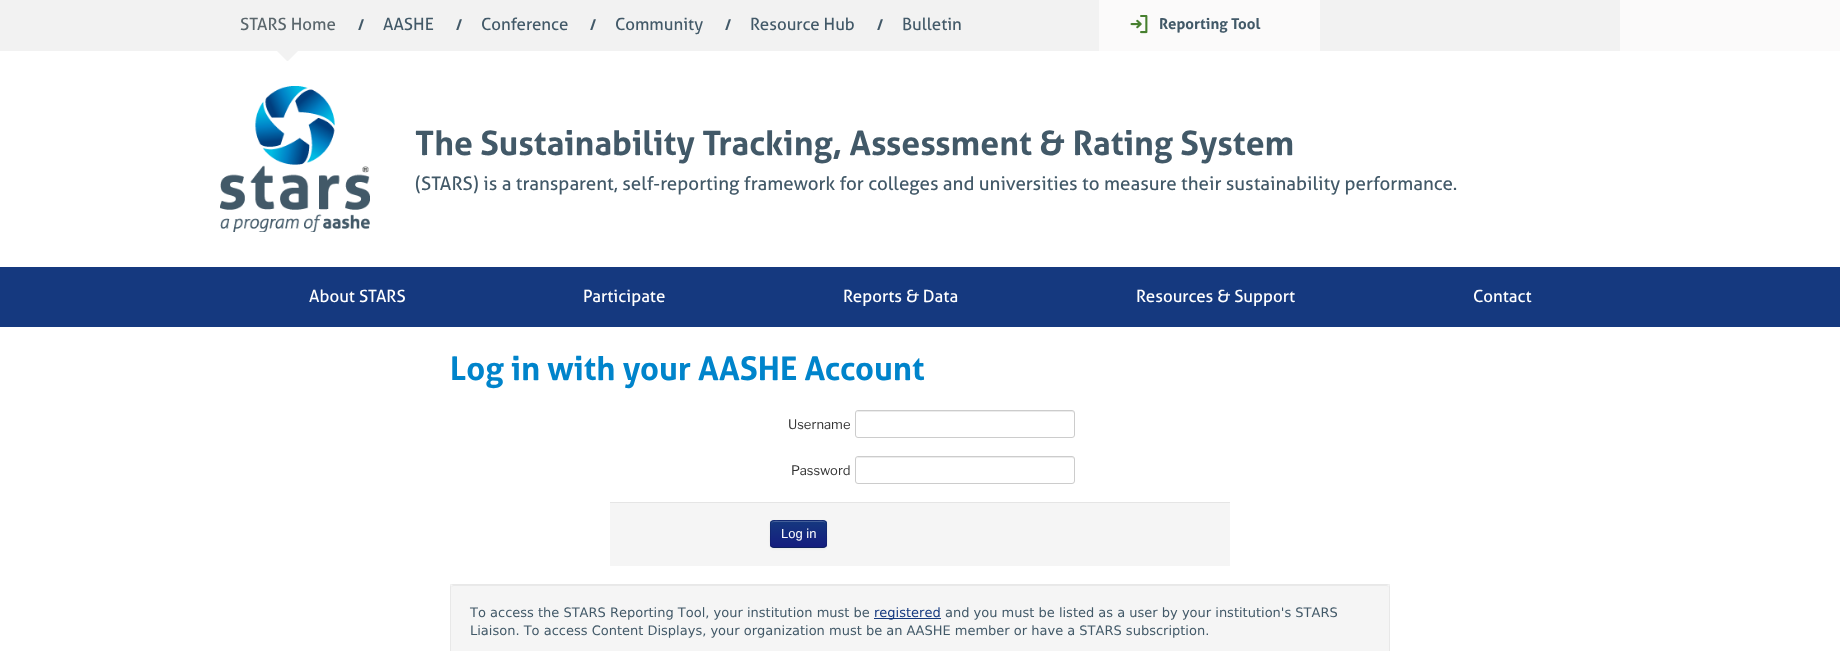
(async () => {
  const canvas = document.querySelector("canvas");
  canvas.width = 1840;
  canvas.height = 651;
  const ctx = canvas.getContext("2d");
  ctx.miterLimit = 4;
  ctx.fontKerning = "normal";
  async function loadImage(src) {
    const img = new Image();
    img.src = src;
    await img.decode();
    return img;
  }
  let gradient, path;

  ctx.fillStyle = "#ffffff";
  ctx.fillRect(0, 0, 1840, 651);
  ctx.fillStyle = "#fbfafa";
  ctx.fillRect(1620, 0, 220, 51);
  ctx.fillStyle = "#f2f2f2";
  ctx.fillRect(0, 0, 1620, 51);
  path = new Path2D("M277 51H298L288 61H287Z");
  ctx.fill(path);
  ctx.fillStyle = "#fbfafa";
  ctx.fillRect(1099, 0, 221, 51);
  ctx.drawImage(await loadImage("img/1.png"), 1130, 15, 18, 19);
  ctx.drawImage(await loadImage("img/2.png"), 220, 86, 150, 146);
  ctx.fillStyle = "#15397f";
  ctx.fillRect(0, 267, 1840, 60);
  ctx.fillStyle = "#ececec";
  path = new Path2D("M858 412H1072C1073 412 1074 413 1074 414C1074 413 1074 411 1072 411H858L857 412L856 414C856 413 857 412 858 412Z");
  ctx.fill(path);
  ctx.beginPath();
  ctx.roundRect(855.5, 410.5, 219, 27, 2.5);
  ctx.strokeStyle = "#cccccc";
  ctx.stroke();
  path = new Path2D("M858 458H1072C1073 458 1074 459 1074 460C1074 459 1074 457 1072 457H858L857 458L856 460C856 459 857 458 858 458Z");
  ctx.fill(path);
  ctx.beginPath();
  ctx.roundRect(855.5, 456.5, 219, 27, 2.5);
  ctx.stroke();
  ctx.fillStyle = "#f5f5f5";
  ctx.fillRect(610, 503, 620, 63);
  ctx.fillStyle = "#e5e5e5";
  ctx.fillRect(610, 502, 620, 1);
  ctx.fillStyle = "rgba(0, 0, 0, 0.05)";
  ctx.filter = "blur(1px)";
  ctx.beginPath();
  ctx.roundRect(770, 521, 57, 28, 4);
  ctx.fill();
  ctx.filter = "none";
  ctx.fillStyle = "#152d7f";
  ctx.beginPath();
  ctx.roundRect(770, 520, 57, 28, 4);
  ctx.fill();
  ctx.save();
  ctx.beginPath();
  ctx.roundRect(770, 520, 57, 28, 4);
  ctx.clip();
  gradient = ctx.createLinearGradient(799, 521, 799, 547);
  gradient.addColorStop(0, "#15387f");
  gradient.addColorStop(1, "#151d7f");
  ctx.fillStyle = gradient;
  ctx.fillRect(770, 521, 57, 26);
  ctx.restore();
  ctx.fillStyle = "#445f99";
  path = new Path2D("M774 522H823C825 522 826 523 826 525C826 519 819 521 815 521H782C778 521 771 519 771 525C771 523 772 522 774 522Z");
  ctx.fill(path);
  path = new Path2D("M825.5 546.5L823.5 547.5H773.5L771.5 546.5");
  ctx.strokeStyle = "rgba(0, 0, 0, 0.25)";
  ctx.stroke(path);
  path = new Path2D("M771.5 546.5C769.5 544 770.5 536.5 770.5 534C770.5 520 768 520.5 782 520.5H815C829 520.5 826.5 520 826.5 534C826.5 536.5 827.5 544 825.5 546.5");
  ctx.strokeStyle = "rgba(0, 0, 0, 0.1)";
  ctx.stroke(path);
  ctx.fillStyle = "#f5f5f5";
  ctx.beginPath();
  ctx.roundRect(450, 584, 940, 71, 4);
  ctx.fill();
  ctx.fillStyle = "#e9e9e9";
  path = new Path2D("M454 586H1386C1388 586 1389 587 1389 589C1389 587 1388 585 1386 585H454C452 585 451 587 451 589C451 587 452 586 454 586Z");
  ctx.fill(path);
  ctx.strokeStyle = "rgba(0, 0, 0, 0.05)";
  ctx.strokeRect(450.5, 584.5, 939, 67);
  ctx.fillStyle = "#15397f";
  ctx.fillRect(874, 618, 67, 1);
  ctx.font = "16.9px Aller";
  ctx.fillStyle = "#5a666c";
  ctx.fillText("STARS Home", 240, 30);
  ctx.font = "bold 15px Aller";
  ctx.fillStyle = "#425968";
  ctx.fillText("/", 358, 30);
  ctx.font = "16.9px Aller";
  ctx.fillText("AASHE", 383, 30);
  ctx.font = "bold 15px Aller";
  ctx.fillText("/", 456, 30);
  ctx.font = "16.9px Aller";
  ctx.fillText("Conference", 481, 30);
  ctx.font = "bold 15px Aller";
  ctx.fillText("/", 590, 30);
  ctx.font = "16.9px Aller";
  ctx.fillText("Community", 615, 30);
  ctx.font = "bold 15px Aller";
  ctx.fillText("/", 725, 30);
  ctx.font = "16.9px Aller";
  ctx.fillText("Resource Hub", 750, 30);
  ctx.font = "bold 15px Aller";
  ctx.fillText("/", 877, 30);
  ctx.font = "16.9px Aller";
  ctx.fillText("Bulletin", 902, 30);
  ctx.font = "bold 15px Aller";
  ctx.fillText("Reporting Tool", 1159, 29);
  ctx.font = "bold 33.75px Aller";
  ctx.fillText("The Sustainability Tracking, Assessment & Rating System", 415, 155);
  ctx.font = "18.75px Aller";
  ctx.fillText("(STARS) is a transparent, self-reporting framework for colleges and universities to measure their sustainability performance.", 415, 190);
  ctx.font = "16.9px Aller";
  ctx.fillStyle = "#ffffff";
  for (const [text, x, y] of [
    ["About STARS", 309, 302],
    ["Participate", 583, 302],
    ["Reports & Data", 843, 302],
    ["Resources & Support", 1136, 302],
    ["Contact", 1473, 302],
  ]) {
    ctx.fillText(text, x, y);
  }
  ctx.font = "bold 32.75px Aller";
  ctx.fillStyle = "#0084cb";
  ctx.fillText("Log in with your AASHE Account", 450, 380);
  ctx.font = "13px Libre Franklin";
  ctx.fillStyle = "#333333";
  ctx.fillText("Username", 788, 429);
  ctx.fillText("Password", 791, 475);
  ctx.font = "13px Liberation Sans";
  ctx.fillStyle = "#ffffff";
  ctx.fillText("Log in", 781, 538);
  ctx.font = "13px DejaVu Sans";
  ctx.fillStyle = "#425968";
  ctx.fillText("To access the STARS Reporting Tool, your institution must be", 470, 617);
  ctx.fillStyle = "#15397f";
  ctx.fillText("registered", 874, 617);
  ctx.fillStyle = "#425968";
  ctx.fillText("and you must be listed as a user by your institution's STARS", 945, 617);
  ctx.fillText("Liaison. To access Content Displays, your organization must be an AASHE member or have a STARS subscription.", 470, 635);
})();
